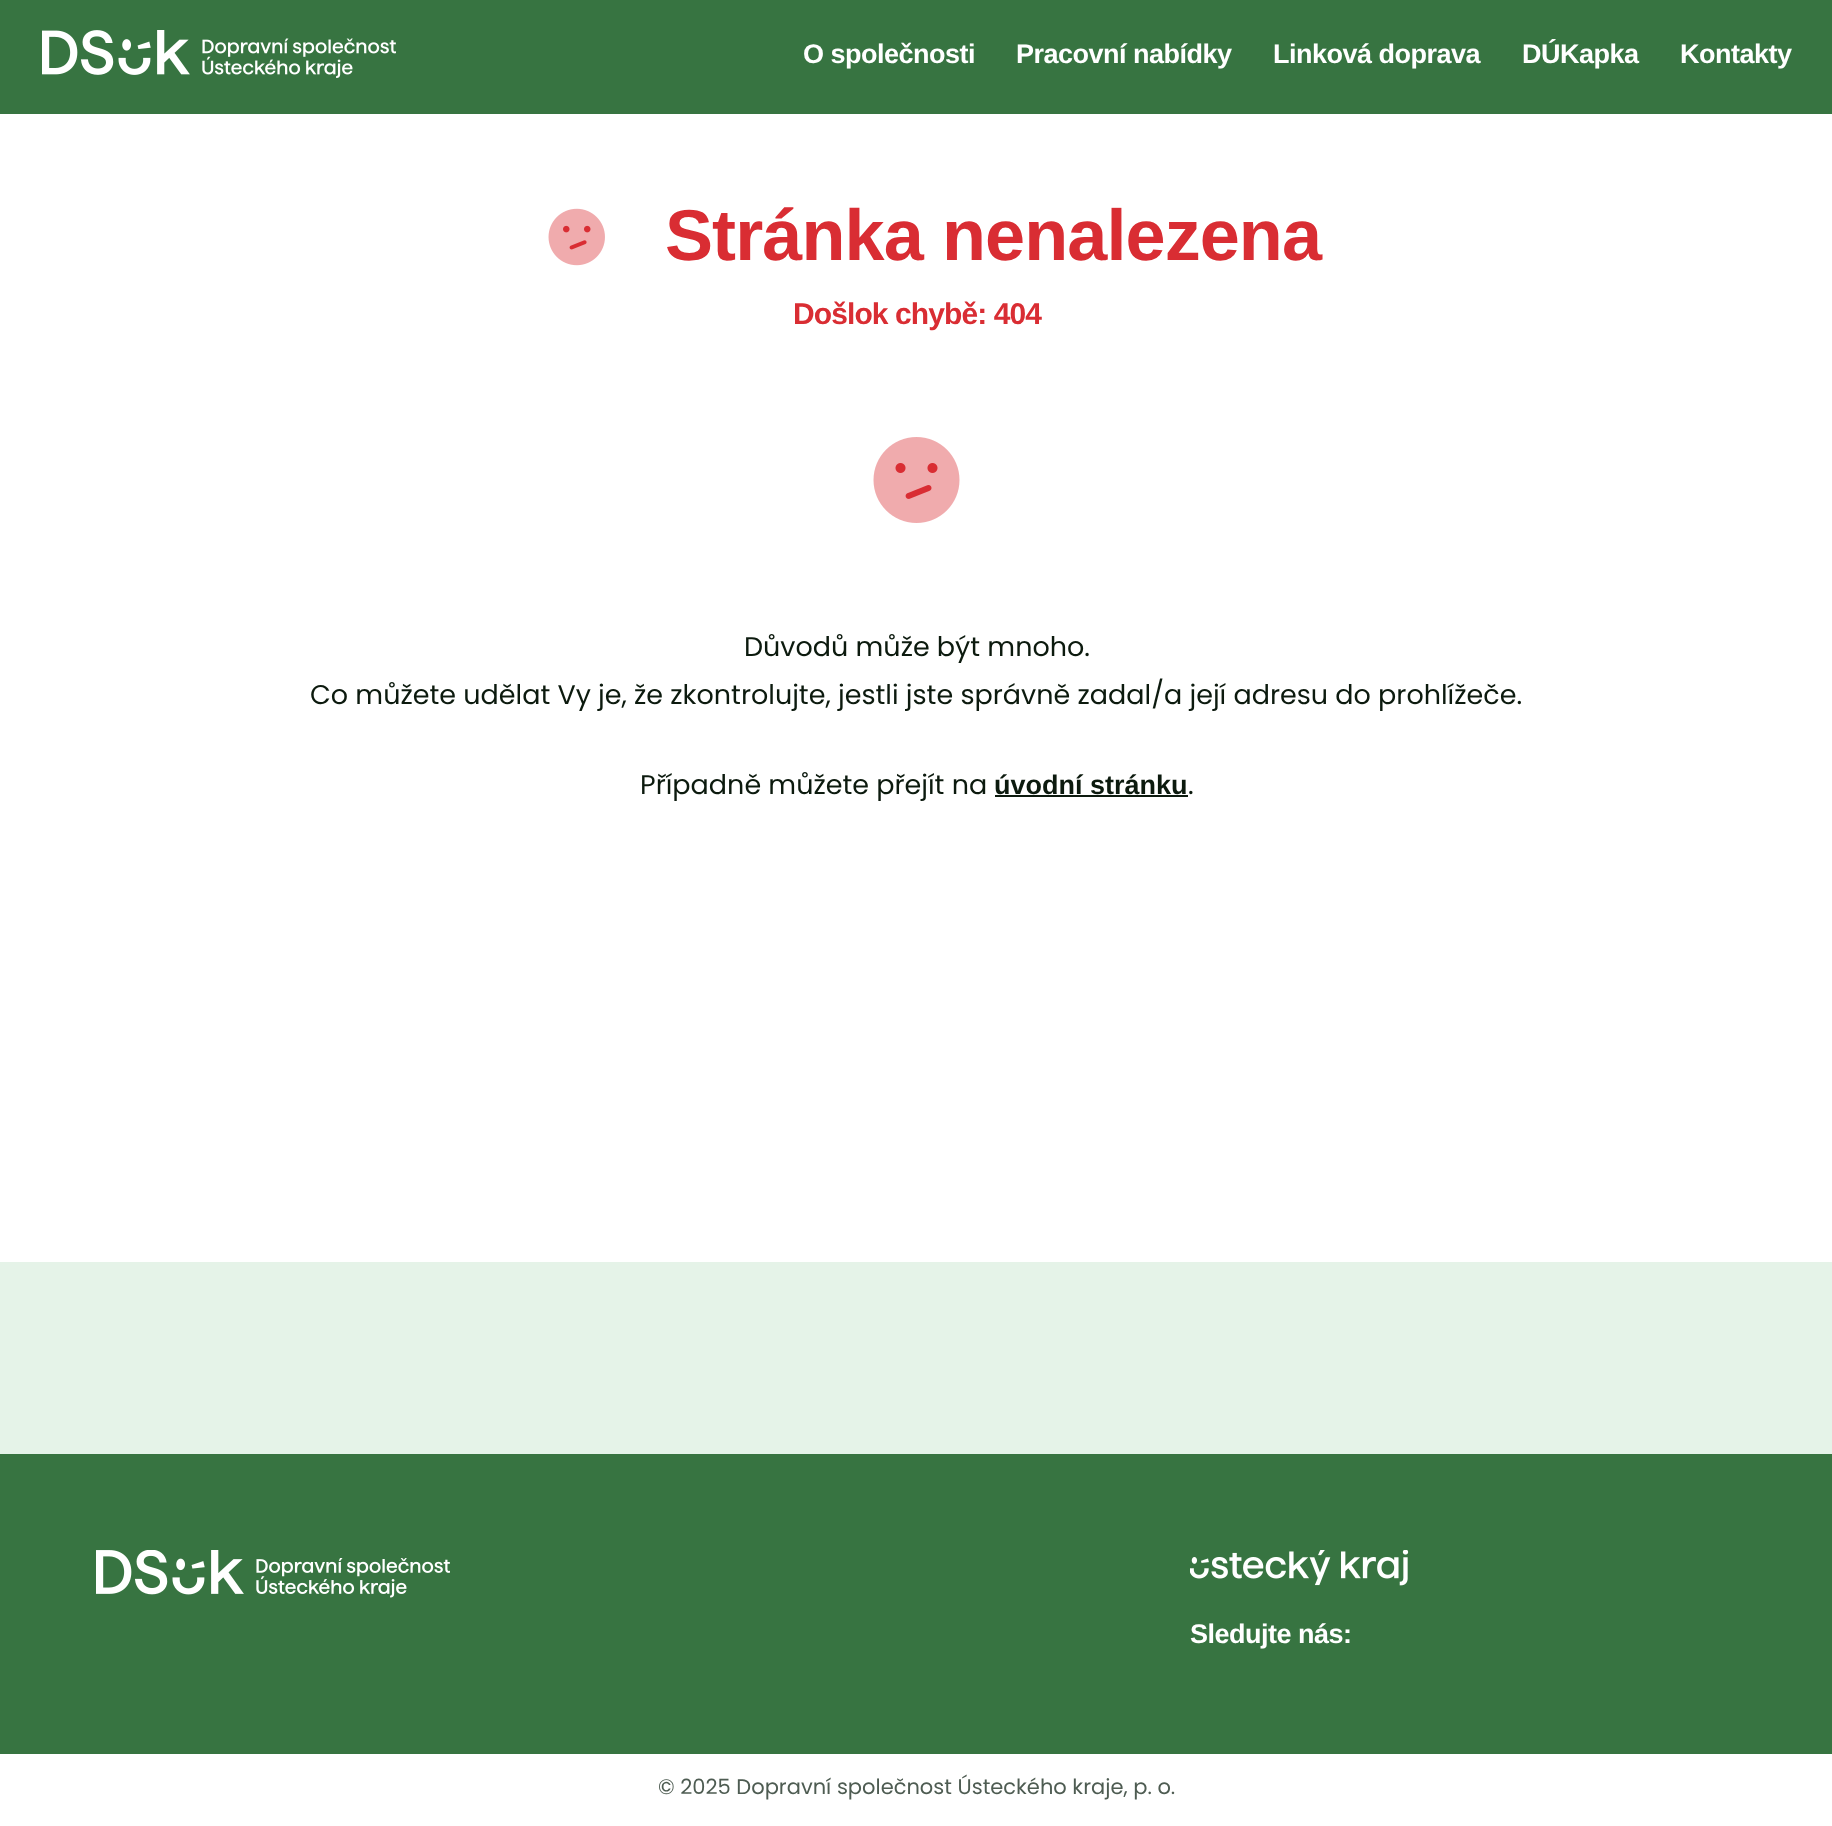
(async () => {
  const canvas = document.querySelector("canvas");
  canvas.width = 1832;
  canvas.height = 1826;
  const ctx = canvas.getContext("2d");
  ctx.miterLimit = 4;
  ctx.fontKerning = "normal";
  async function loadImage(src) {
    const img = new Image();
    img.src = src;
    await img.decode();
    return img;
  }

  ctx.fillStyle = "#ffffff";
  ctx.fillRect(0, 0, 1832, 1826);
  ctx.fillStyle = "#377441";
  ctx.fillRect(0, 0, 1832, 114);
  ctx.drawImage(await loadImage("img/1.png"), 42, 30, 354, 48);
  ctx.drawImage(await loadImage("img/2.png"), 548, 208, 57, 58);
  ctx.drawImage(await loadImage("img/3.png"), 873, 437, 87, 86);
  for (const [x, y, w, h, color] of [
    [995, 795, 193, 2, "#0c1a0e"],
    [0, 1262, 1832, 192, "#e5f3e8"],
    [0, 1454, 1832, 300, "#377441"],
  ]) {
    ctx.fillStyle = color;
    ctx.fillRect(x, y, w, h);
  }
  ctx.drawImage(await loadImage("img/4.png"), 96, 1550, 354, 48);
  ctx.drawImage(await loadImage("img/5.png"), 1190, 1550, 219, 36);
  ctx.letterSpacing = "-0.5px";
  ctx.font = "bold 27px Liberation Sans";
  ctx.fillStyle = "#ffffff";
  for (const [text, x, y] of [
    ["O společnosti", 803, 63],
    ["Pracovní nabídky", 1016, 63],
    ["Linková doprava", 1273, 63],
    ["DÚKapka", 1522, 63],
    ["Kontakty", 1680, 63],
  ]) {
    ctx.fillText(text, x, y);
  }
  ctx.letterSpacing = "-0.9px";
  ctx.font = "bold 72px Liberation Sans";
  ctx.fillStyle = "#d92d33";
  ctx.fillText("Stránka nenalezena", 665, 260);
  ctx.font = "bold 30px Liberation Sans";
  ctx.fillText("Došlok chybě: 404", 793, 324);
  ctx.letterSpacing = "0px";
  ctx.font = "27px Poppins";
  ctx.fillStyle = "#0c1a0e";
  for (const [text, x, y] of [
    ["Důvodů může být mnoho.", 744, 656],
    ["Co můžete udělat Vy je, že zkontrolujte, jestli jste správně zadal/a její adresu do prohlížeče.", 310, 704],
    ["Případně můžete přejít na", 640, 794],
  ]) {
    ctx.fillText(text, x, y);
  }
  ctx.font = "bold 27px Liberation Sans";
  ctx.fillText("úvodní stránku", 994, 794);
  ctx.font = "27px Poppins";
  ctx.fillText(".", 1188, 794);
  ctx.letterSpacing = "-0.5px";
  ctx.font = "bold 27px Liberation Sans";
  ctx.fillStyle = "#ffffff";
  ctx.fillText("Sledujte nás:", 1190, 1643);
  ctx.letterSpacing = "0px";
  ctx.font = "21px Poppins";
  ctx.fillStyle = "#4e5c52";
  ctx.fillText("© 2025 Dopravní společnost Ústeckého kraje, p. o.", 658, 1794);
})();
